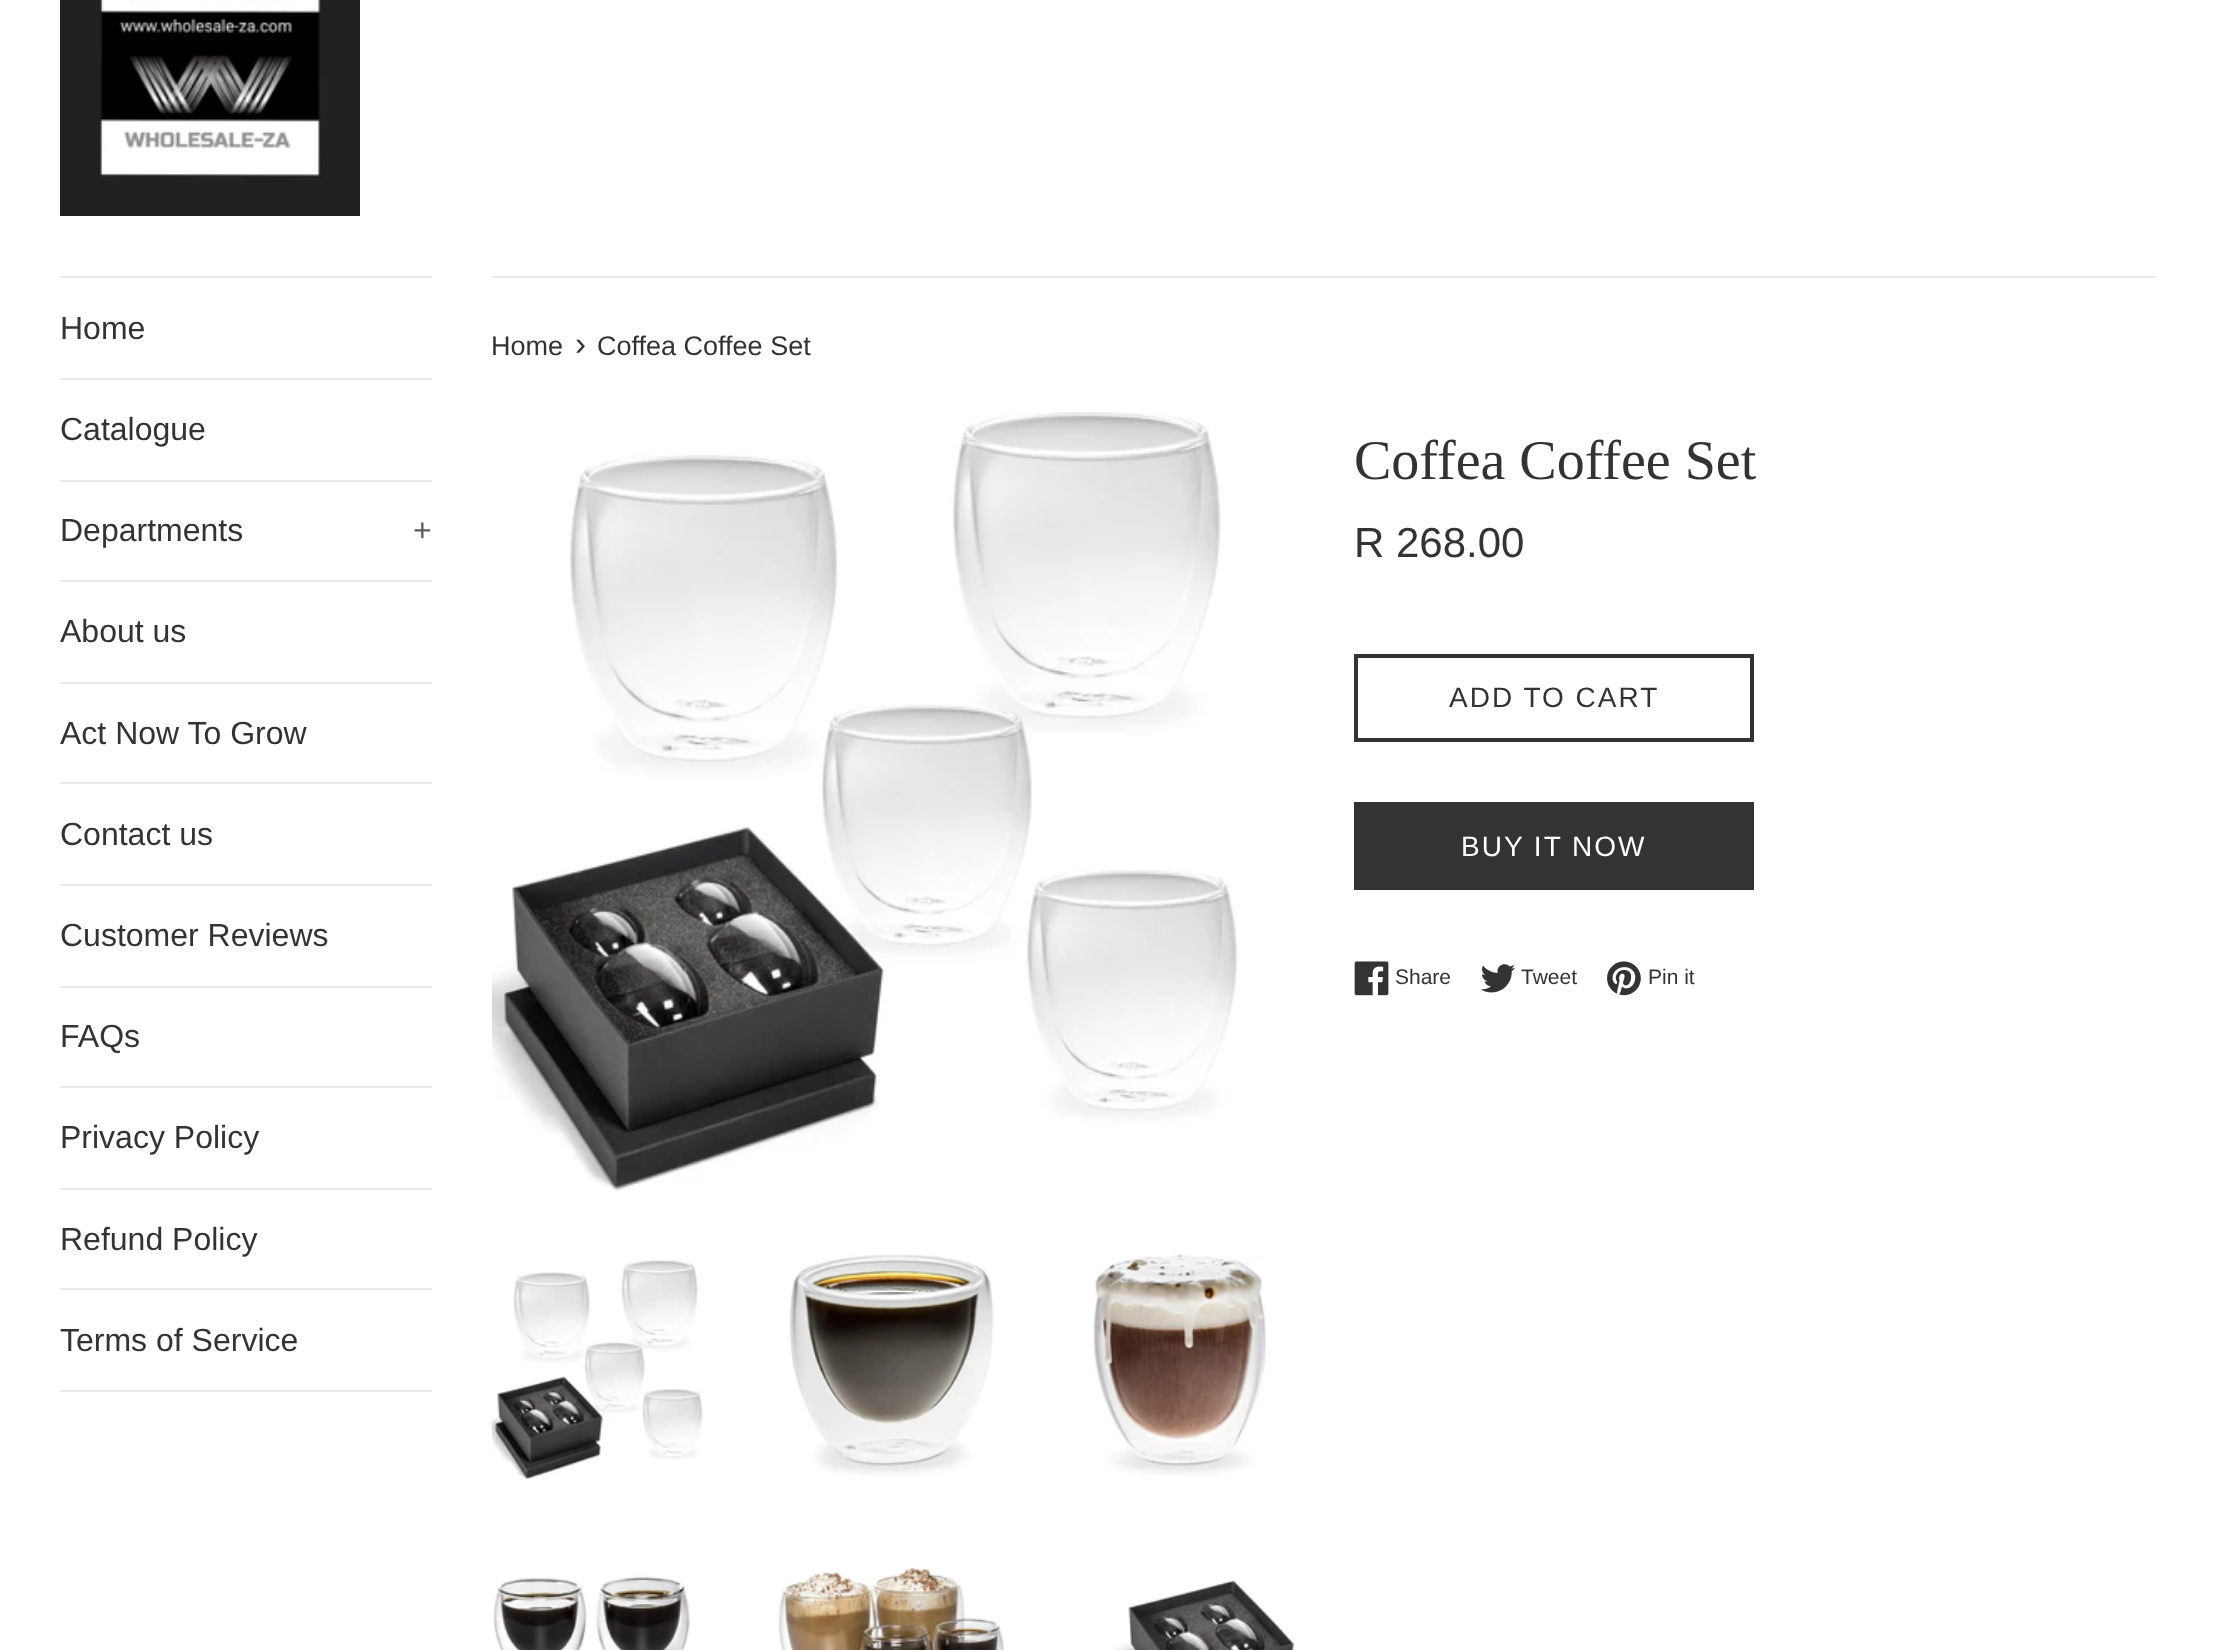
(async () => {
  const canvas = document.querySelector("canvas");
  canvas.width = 2215;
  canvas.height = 1650;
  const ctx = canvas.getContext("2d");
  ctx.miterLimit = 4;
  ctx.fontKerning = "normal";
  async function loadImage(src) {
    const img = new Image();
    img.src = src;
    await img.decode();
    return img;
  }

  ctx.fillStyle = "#ffffff";
  ctx.fillRect(0, 0, 2215, 1650);
  ctx.drawImage(await loadImage("img/1.png"), 60, 0, 300, 216);
  for (const [x, y, w, h, color] of [
    [60, 276, 372, 2, "#e8e8e8"],
    [60, 378, 372, 2, "#e8e8e8"],
    [60, 480, 372, 2, "#e8e8e8"],
    [60, 580, 372, 2, "#e8e8e8"],
    [60, 682, 372, 2, "#e8e8e8"],
    [60, 782, 372, 2, "#e8e8e8"],
    [60, 884, 372, 2, "#e8e8e8"],
    [60, 986, 372, 2, "#e8e8e8"],
    [60, 1086, 372, 2, "#e8e8e8"],
    [60, 1188, 372, 2, "#e8e8e8"],
    [60, 1288, 372, 2, "#e8e8e8"],
    [60, 1390, 372, 2, "#e8e8e8"],
    [492, 276, 1664, 2, "#e8e8e8"],
  ]) {
    ctx.fillStyle = color;
    ctx.fillRect(x, y, w, h);
  }
  ctx.drawImage(await loadImage("img/2.png"), 492, 412, 746, 779);
  ctx.drawImage(await loadImage("img/3.png"), 492, 1259, 212, 220);
  ctx.drawImage(await loadImage("img/4.png"), 789, 1254, 205, 222);
  ctx.drawImage(await loadImage("img/5.png"), 1093, 1254, 178, 222);
  ctx.drawImage(await loadImage("img/6.png"), 493, 1574, 197, 76);
  ctx.drawImage(await loadImage("img/7.png"), 778, 1566, 227, 84);
  ctx.drawImage(await loadImage("img/8.png"), 1113, 1580, 181, 70);
  ctx.strokeStyle = "#333333";
  ctx.lineWidth = 4;
  ctx.strokeRect(1356, 656, 396, 84);
  ctx.fillStyle = "#333333";
  ctx.fillRect(1354, 802, 400, 88);
  ctx.drawImage(await loadImage("img/9.png"), 1354, 961, 35, 35);
  ctx.drawImage(await loadImage("img/10.png"), 1480, 964, 35, 29);
  ctx.drawImage(await loadImage("img/11.png"), 1607, 961, 34, 35);
  ctx.font = "32px Liberation Sans";
  for (const [text, x, y] of [
    ["Home", 60, 339],
    ["Catalogue", 60, 440],
    ["Departments", 60, 541],
  ]) {
    ctx.fillText(text, x, y);
  }
  ctx.fillStyle = "#5c5c5c";
  ctx.fillText("+", 413, 541);
  ctx.fillStyle = "#333333";
  for (const [text, x, y] of [
    ["About us", 60, 642],
    ["Act Now To Grow", 60, 744],
    ["Contact us", 60, 845],
    ["Customer Reviews", 60, 946],
    ["FAQs", 60, 1047],
    ["Privacy Policy", 60, 1148],
    ["Refund Policy", 60, 1250],
    ["Terms of Service", 60, 1351],
  ]) {
    ctx.fillText(text, x, y);
  }
  ctx.font = "27px Liberation Sans";
  ctx.fillText("Home", 491, 355);
  ctx.font = "33px Liberation Sans";
  ctx.fillText("›", 575, 355);
  ctx.font = "27px Liberation Sans";
  ctx.fillText("Coffea Coffee Set", 597, 355);
  ctx.font = "56px Liberation Serif";
  ctx.fillText("Coffea Coffee Set", 1354, 479);
  ctx.font = "42px Liberation Sans";
  ctx.fillText("R 268.00", 1354, 557);
  ctx.letterSpacing = "2px";
  ctx.font = "28px Liberation Sans";
  ctx.fillText("ADD TO CART", 1449, 707);
  ctx.fillStyle = "#ffffff";
  ctx.fillText("BUY IT NOW", 1461, 856);
  ctx.letterSpacing = "0px";
  ctx.font = "21px Liberation Sans";
  ctx.fillStyle = "#333333";
  for (const [text, x, y] of [
    ["Share", 1395, 984],
    ["Tweet", 1521, 984],
    ["Pin it", 1648, 984],
  ]) {
    ctx.fillText(text, x, y);
  }
})();
